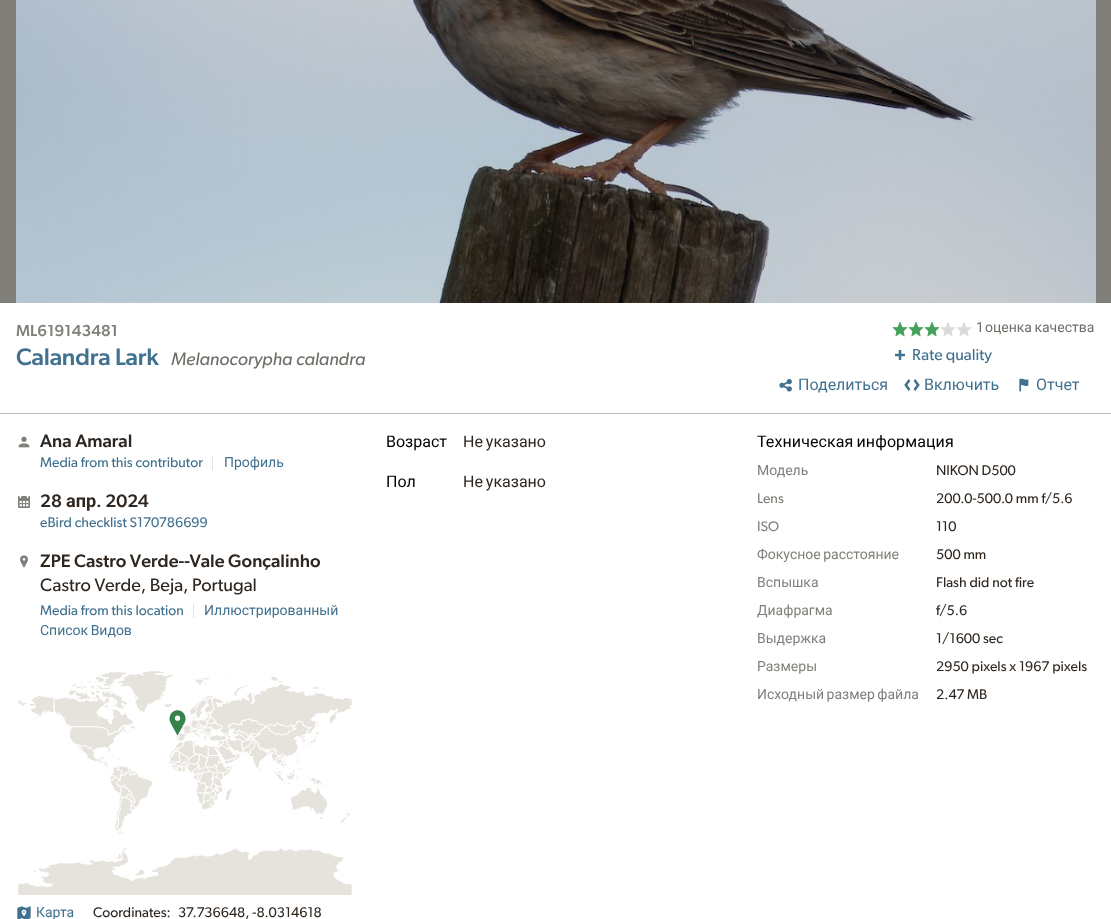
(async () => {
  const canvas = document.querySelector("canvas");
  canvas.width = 1111;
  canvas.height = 919;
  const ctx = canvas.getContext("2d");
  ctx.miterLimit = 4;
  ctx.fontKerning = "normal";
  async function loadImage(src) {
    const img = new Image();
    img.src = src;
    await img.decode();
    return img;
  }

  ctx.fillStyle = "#817f79";
  ctx.fillRect(0, 0, 1111, 919);
  ctx.drawImage(await loadImage("img/1.png"), 16, 0, 1080, 303);
  ctx.fillStyle = "#ffffff";
  ctx.fillRect(0, 303, 1111, 616);
  ctx.drawImage(await loadImage("img/2.png"), 892, 321, 16, 16);
  ctx.drawImage(await loadImage("img/2.png"), 908, 321, 16, 16);
  ctx.drawImage(await loadImage("img/2.png"), 924, 321, 16, 16);
  ctx.drawImage(await loadImage("img/3.png"), 940, 322, 16, 15);
  ctx.drawImage(await loadImage("img/3.png"), 956, 322, 16, 15);
  ctx.drawImage(await loadImage("img/4.png"), 895, 350, 10, 10);
  ctx.drawImage(await loadImage("img/5.png"), 779, 379, 13, 13);
  ctx.drawImage(await loadImage("img/6.png"), 904, 379, 16, 12);
  ctx.drawImage(await loadImage("img/7.png"), 1019, 378, 10, 14);
  ctx.fillStyle = "#bfbfbf";
  ctx.fillRect(0, 413, 1111, 1);
  ctx.drawImage(await loadImage("img/8.png"), 18, 436, 12, 12);
  ctx.fillStyle = "#e5e3dc";
  ctx.fillRect(212, 456, 1, 14);
  ctx.drawImage(await loadImage("img/9.png"), 18, 496, 12, 12);
  ctx.drawImage(await loadImage("img/10.png"), 20, 555, 8, 13);
  ctx.fillRect(193, 604, 1, 14);
  ctx.drawImage(await loadImage("img/11.png"), 18, 670, 334, 225);
  ctx.drawImage(await loadImage("img/12.png"), 17, 906, 14, 13);
  ctx.letterSpacing = "0.1px";
  ctx.font = "500 16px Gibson";
  ctx.fillStyle = "#817f79";
  ctx.fillText("ML619143481", 16, 336);
  ctx.letterSpacing = "-0.2px";
  ctx.font = "500 24px Gibson";
  ctx.fillStyle = "#40718f";
  ctx.fillText("Calandra Lark", 16, 365);
  ctx.letterSpacing = "0px";
  ctx.font = "italic 18.1px Gibson";
  ctx.fillStyle = "#6f6e67";
  ctx.fillText("Melanocorypha calandra", 171, 365);
  ctx.font = "14px Roboto";
  ctx.fillText("1", 976, 332);
  ctx.wordSpacing = "-1px";
  ctx.fillText("оценка качества", 985, 332);
  ctx.wordSpacing = "0px";
  ctx.font = "16px Gibson";
  ctx.fillStyle = "#40718f";
  ctx.fillText("Rate quality", 912, 360);
  ctx.font = "16px Roboto";
  for (const [text, x, y] of [
    ["Поделиться", 798, 390],
    ["Включить", 924, 390],
    ["Отчет", 1036, 390],
  ]) {
    ctx.fillText(text, x, y);
  }
  ctx.font = "500 18.1px Gibson";
  ctx.fillStyle = "#2e261f";
  ctx.fillText("Ana Amaral", 40, 447);
  ctx.font = "14px Gibson";
  ctx.fillStyle = "#40718f";
  ctx.fillText("Media from this contributor", 40, 467);
  ctx.font = "14px Roboto";
  ctx.fillText("Профиль", 224, 467);
  ctx.font = "500 18.1px Gibson";
  ctx.fillStyle = "#2e261f";
  ctx.fillText("28", 40, 507);
  ctx.font = "bold 18.1px Roboto";
  ctx.fillText("апр", 66, 507);
  ctx.font = "500 18.1px Gibson";
  ctx.fillText(". 2024", 96, 507);
  ctx.font = "14px Gibson";
  ctx.fillStyle = "#40718f";
  ctx.fillText("eBird checklist S170786699", 40, 527);
  ctx.font = "500 18.1px Gibson";
  ctx.fillStyle = "#2e261f";
  ctx.fillText("ZPE Castro Verde--Vale Gonçalinho", 40, 567);
  ctx.font = "18.1px Gibson";
  ctx.fillText("Castro Verde, Beja, Portugal", 40, 591);
  ctx.font = "14px Gibson";
  ctx.fillStyle = "#40718f";
  ctx.fillText("Media from this location", 40, 615);
  ctx.font = "14px Roboto";
  ctx.fillText("Иллюстрированный", 204, 615);
  ctx.wordSpacing = "-1px";
  ctx.fillText("Список Видов", 40, 635);
  ctx.wordSpacing = "0px";
  ctx.fillText("Карта", 36, 917);
  ctx.font = "14px Gibson";
  ctx.fillStyle = "#2e261f";
  ctx.fillText("Coordinates:", 93, 917);
  ctx.fillText("37.736648, -8.0314618", 178, 917);
  ctx.font = "16px Roboto";
  ctx.fillStyle = "#000000";
  ctx.fillText("Возраст", 386, 447);
  ctx.wordSpacing = "-1px";
  ctx.fillStyle = "#2e261f";
  ctx.fillText("Не указано", 463, 447);
  ctx.wordSpacing = "0px";
  ctx.fillStyle = "#000000";
  ctx.fillText("Пол", 386, 487);
  ctx.wordSpacing = "-1px";
  ctx.fillStyle = "#2e261f";
  ctx.fillText("Не указано", 463, 487);
  ctx.letterSpacing = "0.1px";
  ctx.fillStyle = "#000000";
  ctx.fillText("Техническая информация", 757, 447);
  ctx.letterSpacing = "0px";
  ctx.wordSpacing = "0px";
  ctx.font = "14px Roboto";
  ctx.fillStyle = "#817f79";
  ctx.fillText("Модель", 757, 475);
  ctx.font = "14px Gibson";
  ctx.fillStyle = "#2e261f";
  ctx.fillText("NIKON D500", 936, 475);
  ctx.fillStyle = "#817f79";
  ctx.fillText("Lens", 757, 503);
  ctx.fillStyle = "#2e261f";
  ctx.fillText("200.0-500.0 mm f/5.6", 936, 503);
  ctx.fillStyle = "#817f79";
  ctx.fillText("ISO", 757, 531);
  ctx.fillStyle = "#2e261f";
  ctx.fillText("110", 936, 531);
  ctx.wordSpacing = "-1px";
  ctx.font = "14px Roboto";
  ctx.fillStyle = "#817f79";
  ctx.fillText("Фокусное расстояние", 757, 559);
  ctx.wordSpacing = "0px";
  ctx.font = "14px Gibson";
  ctx.fillStyle = "#2e261f";
  ctx.fillText("500 mm", 936, 559);
  ctx.font = "14px Roboto";
  ctx.fillStyle = "#817f79";
  ctx.fillText("Вспышка", 757, 587);
  ctx.font = "14px Gibson";
  ctx.fillStyle = "#2e261f";
  ctx.fillText("Flash did not fire", 936, 587);
  ctx.font = "14px Roboto";
  ctx.fillStyle = "#817f79";
  ctx.fillText("Диафрагма", 757, 615);
  ctx.font = "14px Gibson";
  ctx.fillStyle = "#2e261f";
  ctx.fillText("f/5.6", 936, 615);
  ctx.font = "14px Roboto";
  ctx.fillStyle = "#817f79";
  ctx.fillText("Выдержка", 757, 643);
  ctx.font = "14px Gibson";
  ctx.fillStyle = "#2e261f";
  ctx.fillText("1/1600 sec", 936, 643);
  ctx.font = "14px Roboto";
  ctx.fillStyle = "#817f79";
  ctx.fillText("Размеры", 757, 671);
  ctx.font = "14px Gibson";
  ctx.fillStyle = "#2e261f";
  ctx.fillText("2950 pixels x 1967 pixels", 936, 671);
  ctx.wordSpacing = "-1px";
  ctx.font = "14px Roboto";
  ctx.fillStyle = "#817f79";
  ctx.fillText("Исходный размер файла", 757, 699);
  ctx.wordSpacing = "0px";
  ctx.font = "14px Gibson";
  ctx.fillStyle = "#2e261f";
  ctx.fillText("2.47 MB", 936, 699);
})();
